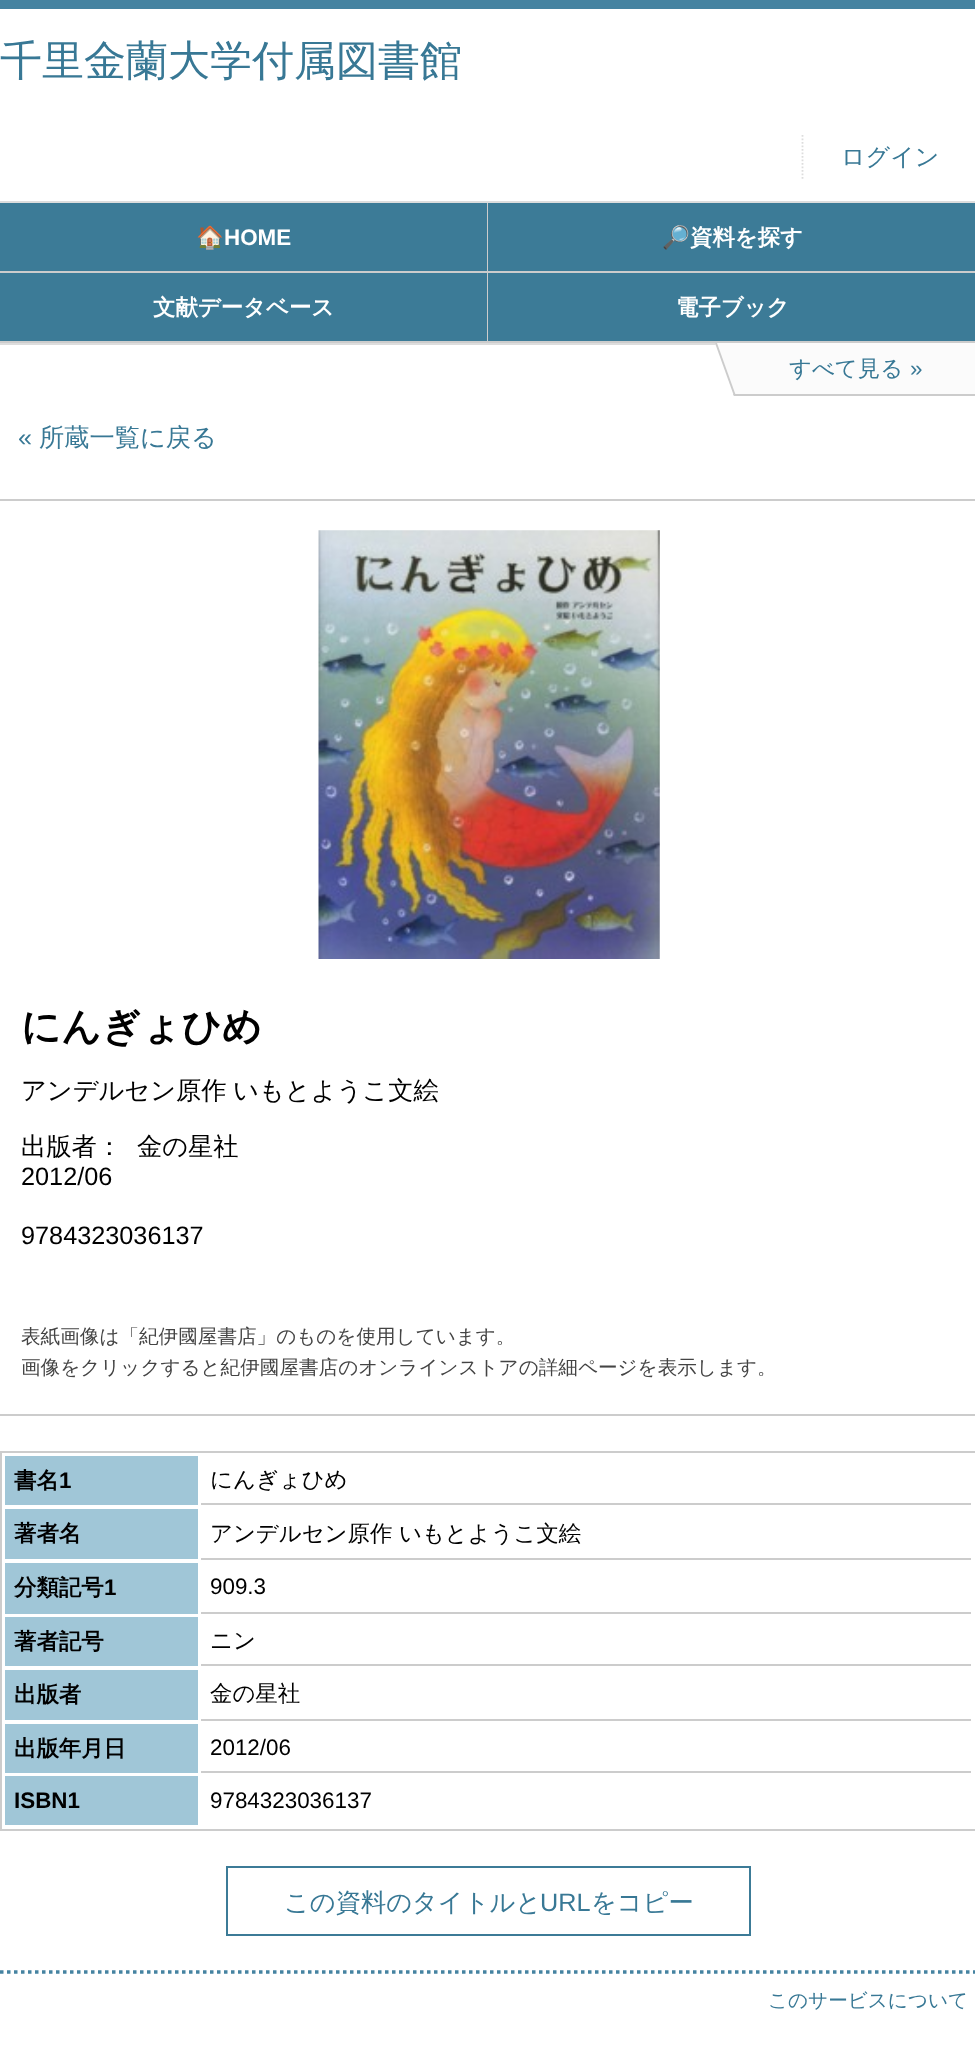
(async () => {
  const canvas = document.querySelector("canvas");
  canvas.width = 975;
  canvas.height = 2045;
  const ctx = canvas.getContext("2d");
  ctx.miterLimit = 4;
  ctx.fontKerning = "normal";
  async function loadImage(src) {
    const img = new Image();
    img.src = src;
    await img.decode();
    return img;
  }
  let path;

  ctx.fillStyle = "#ffffff";
  ctx.fillRect(0, 0, 975, 2045);
  ctx.fillStyle = "#4583a1";
  ctx.fillRect(0, 0, 975, 9);
  path = new Path2D("M802.5 135V180");
  ctx.strokeStyle = "#dddddd";
  ctx.lineWidth = 1.8;
  ctx.setLineDash([1.75, 1.75]);
  ctx.stroke(path);
  for (const [x, y, w, h, color] of [
    [0, 201, 975, 2, "#dddddd"],
    [0, 343, 716, 2, "#dddddd"],
    [487, 203, 1, 140, "#cccccc"],
    [0, 271, 975, 2, "#cccccc"],
    [0, 203, 487, 68, "#3c7b97"],
    [488, 203, 487, 68, "#3c7b97"],
    [0, 341, 975, 2, "#cccccc"],
    [0, 273, 487, 68, "#3c7b97"],
    [488, 273, 487, 68, "#3c7b97"],
  ]) {
    ctx.fillStyle = color;
    ctx.fillRect(x, y, w, h);
  }
  ctx.fillStyle = "#fbfbfb";
  path = new Path2D("M715 343H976L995 396H734Z");
  ctx.fill(path);
  ctx.fillStyle = "#cccccc";
  path = new Path2D("M733 394H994L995 396H734Z");
  ctx.fill(path);
  path = new Path2D("M715 343H717L736 396H734Z");
  ctx.fill(path);
  ctx.fillRect(0, 499, 975, 2);
  ctx.fillRect(0, 1414, 975, 2);
  ctx.drawImage(await loadImage("img/1.png"), 318, 530, 342, 429);
  ctx.strokeStyle = "#cccccc";
  ctx.lineWidth = 2;
  ctx.setLineDash([]);
  ctx.strokeRect(1, 1452, 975, 378);
  for (const [x, y, w, h, color] of [
    [5, 1456, 193, 49, "#a0c6d7"],
    [201, 1503, 770, 2, "#cccccc"],
    [5, 1509, 193, 50, "#a0c6d7"],
    [201, 1558, 770, 2, "#cccccc"],
    [5, 1563, 193, 51, "#a0c6d7"],
    [201, 1612, 770, 2, "#cccccc"],
    [5, 1617, 193, 49, "#a0c6d7"],
    [201, 1664, 770, 2, "#cccccc"],
    [5, 1670, 193, 50, "#a0c6d7"],
    [201, 1719, 770, 2, "#cccccc"],
    [5, 1724, 193, 49, "#a0c6d7"],
    [201, 1771, 770, 2, "#cccccc"],
    [5, 1776, 193, 49, "#a0c6d7"],
  ]) {
    ctx.fillStyle = color;
    ctx.fillRect(x, y, w, h);
  }
  ctx.strokeStyle = "#3c7b97";
  ctx.strokeRect(227, 1867, 523, 68);
  path = new Path2D("M0 1972H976.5");
  ctx.strokeStyle = "#4583a1";
  ctx.lineWidth = 3.5;
  ctx.setLineDash([3.5, 3.5]);
  ctx.stroke(path);
  ctx.font = "500 42px WenQuanYi Zen Hei";
  ctx.fillStyle = "#387895";
  ctx.fillText("千里金蘭大学付属図書館", 0, 75);
  ctx.font = "500 24px WenQuanYi Zen Hei";
  ctx.fillText("ログイン", 841, 165);
  ctx.font = "bold 22.4px Noto Color Emoji";
  ctx.fillStyle = "#ffffff";
  ctx.fillText("🏠", 196, 245);
  ctx.font = "bold 22.4px Liberation Sans";
  ctx.fillText("HOME", 224, 245);
  ctx.font = "bold 22.4px Noto Color Emoji";
  ctx.fillText("🔎", 662, 245);
  ctx.font = "bold 22.4px WenQuanYi Zen Hei";
  for (const [text, x, y] of [
    ["資料を探す", 690, 245],
    ["文献データベース", 153, 315],
    ["電子ブック", 676, 315],
  ]) {
    ctx.fillText(text, x, y);
  }
  ctx.font = "500 22.4px WenQuanYi Zen Hei";
  ctx.fillStyle = "#387895";
  ctx.fillText("すべて見る", 789, 376);
  ctx.font = "22.4px Liberation Sans";
  ctx.fillText("»", 910, 376);
  ctx.font = "25.25px Liberation Sans";
  ctx.fillText("«", 18, 446);
  ctx.font = "500 25.25px WenQuanYi Zen Hei";
  ctx.fillText("所蔵一覧に戻る", 39, 446);
  ctx.font = "bold 39.25px WenQuanYi Zen Hei";
  ctx.fillStyle = "#000000";
  ctx.fillText("にんぎょひめ", 21, 1040);
  ctx.wordSpacing = "-1px";
  ctx.font = "500 25.25px WenQuanYi Zen Hei";
  ctx.fillText("アンデルセン原作 いもとようこ文絵", 21, 1099);
  ctx.wordSpacing = "0px";
  ctx.fillText("出版者：", 21, 1155);
  ctx.fillText("金の星社", 137, 1155);
  ctx.font = "25.25px Liberation Sans";
  ctx.fillText("2012/06", 21, 1185);
  ctx.fillText("9784323036137", 21, 1244);
  ctx.font = "500 19.6px WenQuanYi Zen Hei";
  ctx.fillStyle = "#444444";
  ctx.fillText("表紙画像は「紀伊國屋書店」のものを使用しています。", 21, 1343);
  ctx.fillText("画像をクリックすると紀伊國屋書店のオンラインストアの詳細ページを表示します。", 21, 1374);
  ctx.font = "bold 22.4px WenQuanYi Zen Hei";
  ctx.fillStyle = "#000000";
  ctx.fillText("書名", 14, 1488);
  ctx.font = "bold 22.4px Liberation Sans";
  ctx.fillText("1", 59, 1488);
  ctx.font = "500 22.4px WenQuanYi Zen Hei";
  ctx.fillText("にんぎょひめ", 210, 1487);
  ctx.font = "bold 22.4px WenQuanYi Zen Hei";
  ctx.fillText("著者名", 14, 1541);
  ctx.font = "500 22.4px WenQuanYi Zen Hei";
  ctx.fillText("アンデルセン原作 いもとようこ文絵", 210, 1541);
  ctx.font = "bold 22.4px WenQuanYi Zen Hei";
  ctx.fillText("分類記号", 14, 1595);
  ctx.font = "bold 22.4px Liberation Sans";
  ctx.fillText("1", 104, 1595);
  ctx.font = "22.4px Liberation Sans";
  ctx.fillText("909.3", 210, 1594);
  ctx.font = "bold 22.4px WenQuanYi Zen Hei";
  ctx.fillText("著者記号", 14, 1649);
  ctx.font = "500 22.4px WenQuanYi Zen Hei";
  ctx.fillText("ニン", 210, 1648);
  ctx.font = "bold 22.4px WenQuanYi Zen Hei";
  ctx.fillText("出版者", 14, 1702);
  ctx.font = "500 22.4px WenQuanYi Zen Hei";
  ctx.fillText("金の星社", 210, 1701);
  ctx.font = "bold 22.4px WenQuanYi Zen Hei";
  ctx.fillText("出版年月日", 14, 1756);
  ctx.font = "22.4px Liberation Sans";
  ctx.fillText("2012/06", 210, 1755);
  ctx.font = "bold 22.4px Liberation Sans";
  ctx.fillText("ISBN1", 14, 1808);
  ctx.font = "22.4px Liberation Sans";
  ctx.fillText("9784323036137", 210, 1808);
  ctx.font = "500 25.25px WenQuanYi Zen Hei";
  ctx.fillStyle = "#387895";
  ctx.fillText("この資料のタイトルと", 284, 1911);
  ctx.font = "25.25px Liberation Sans";
  ctx.fillText("URL", 540, 1911);
  ctx.font = "500 25.25px WenQuanYi Zen Hei";
  ctx.fillText("をコピー", 591, 1911);
  ctx.font = "500 19.6px WenQuanYi Zen Hei";
  ctx.fillText("このサービスについて", 768, 2007);
})();
